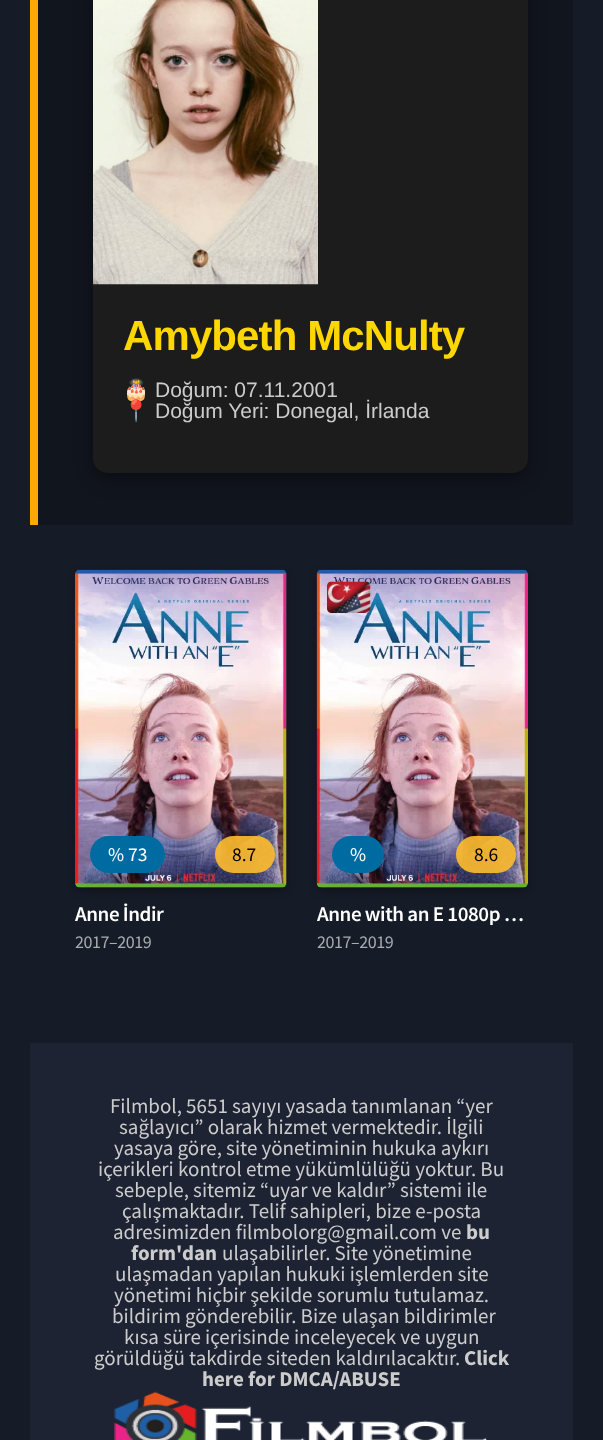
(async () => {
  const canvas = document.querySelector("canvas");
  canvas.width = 603;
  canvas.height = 1440;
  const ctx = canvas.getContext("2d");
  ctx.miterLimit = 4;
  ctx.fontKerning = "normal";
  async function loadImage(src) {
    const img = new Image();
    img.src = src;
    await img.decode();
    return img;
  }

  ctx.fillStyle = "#161b28";
  ctx.fillRect(0, 0, 603, 1440);
  ctx.fillStyle = "#11151e";
  ctx.fillRect(38, 0, 535, 525);
  ctx.fillStyle = "#ffa900";
  ctx.fillRect(30, 0, 8, 525);
  ctx.fillStyle = "rgba(0, 0, 0, 0.4)";
  ctx.filter = "blur(9px)";
  ctx.beginPath();
  ctx.roundRect(93, -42, 435, 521, 15);
  ctx.fill();
  ctx.filter = "none";
  ctx.fillStyle = "#1c1c1c";
  ctx.beginPath();
  ctx.roundRect(93, -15, 435, 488, 15);
  ctx.fill();
  ctx.drawImage(await loadImage("img/1.png"), 93, 0, 225, 285);
  ctx.fillStyle = "rgba(0, 0, 0, 0.28)";
  ctx.filter = "blur(4px)";
  ctx.beginPath();
  ctx.roundRect(75, 573, 212, 318, 5);
  ctx.fill();
  ctx.filter = "none";
  ctx.fillStyle = "#2d2f34";
  ctx.beginPath();
  ctx.roundRect(75, 570, 212, 318, 5);
  ctx.fill();
  ctx.drawImage(await loadImage("img/2.png"), 75, 569, 212, 319);
  ctx.fillStyle = "#006ba1";
  ctx.beginPath();
  ctx.roundRect(90, 836, 75, 37, 18.5);
  ctx.fill();
  ctx.fillStyle = "rgba(255, 189, 46, 0.9)";
  ctx.beginPath();
  ctx.roundRect(215, 836, 60, 37, 18.5);
  ctx.fill();
  ctx.fillStyle = "rgba(0, 0, 0, 0.28)";
  ctx.filter = "blur(4px)";
  ctx.beginPath();
  ctx.roundRect(317, 573, 211, 318, 5);
  ctx.fill();
  ctx.filter = "none";
  ctx.fillStyle = "#2d2f34";
  ctx.beginPath();
  ctx.roundRect(317, 570, 211, 318, 5);
  ctx.fill();
  ctx.drawImage(await loadImage("img/3.png"), 316, 569, 212, 319);
  ctx.drawImage(await loadImage("img/4.png"), 327, 581, 44, 32);
  ctx.fillStyle = "#006ba1";
  ctx.beginPath();
  ctx.roundRect(332, 836, 52, 37, 18.5);
  ctx.fill();
  ctx.fillStyle = "rgba(255, 189, 46, 0.9)";
  ctx.beginPath();
  ctx.roundRect(456, 836, 60, 37, 18.5);
  ctx.fill();
  ctx.fillStyle = "#1d2333";
  ctx.fillRect(30, 1043, 543, 397);
  ctx.drawImage(await loadImage("img/5.png"), 114, 1391, 373, 49);
  ctx.letterSpacing = "-0.9px";
  ctx.font = "bold 42px Liberation Sans";
  ctx.fillStyle = "#ffd700";
  ctx.fillText("Amybeth McNulty", 123, 350);
  ctx.letterSpacing = "0px";
  ctx.font = "21px Noto Color Emoji";
  ctx.fillStyle = "#cccccc";
  ctx.fillText("🎂", 123, 397);
  ctx.font = "21px Liberation Sans";
  ctx.fillText("Doğum: 07.11.2001", 155, 397);
  ctx.font = "21px Noto Color Emoji";
  ctx.fillText("📍", 123, 418);
  ctx.font = "21px Liberation Sans";
  ctx.fillText("Doğum Yeri: Donegal, İrlanda", 155, 418);
  ctx.font = "19.5px Source Sans Pro";
  ctx.fillStyle = "#ffffff";
  ctx.fillText("% 73", 108, 861);
  ctx.fillStyle = "#000000";
  ctx.fillText("8.7", 232, 861);
  ctx.letterSpacing = "-0.45px";
  ctx.font = "600 21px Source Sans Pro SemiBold";
  ctx.fillStyle = "#ffffff";
  ctx.fillText("Anne İndir", 75, 921);
  ctx.font = "18px Source Sans Pro";
  ctx.fillStyle = "#a9abaf";
  ctx.fillText("2017–2019", 75, 948);
  ctx.letterSpacing = "0px";
  ctx.font = "19.5px Source Sans Pro";
  ctx.fillStyle = "#ffffff";
  ctx.fillText("%", 350, 861);
  ctx.fillStyle = "#000000";
  ctx.fillText("8.6", 474, 861);
  ctx.letterSpacing = "-0.45px";
  ctx.font = "600 21px Source Sans Pro SemiBold";
  ctx.fillStyle = "#ffffff";
  ctx.fillText("Anne with an E 1080p …", 317, 921);
  ctx.font = "18px Source Sans Pro";
  ctx.fillStyle = "#a9abaf";
  ctx.fillText("2017–2019", 317, 948);
  ctx.letterSpacing = "0px";
  ctx.font = "21px Source Sans Pro";
  ctx.fillStyle = "#cccccc";
  for (const [text, x, y] of [
    ["Filmbol, 5651 sayıyı yasada tanımlanan “yer", 110, 1113],
    ["sağlayıcı” olarak hizmet vermektedir. İlgili", 119, 1134],
    ["yasaya göre, site yönetiminin hukuka aykırı", 114, 1155],
    ["içerikleri kontrol etme yükümlülüğü yoktur. Bu", 98, 1176],
    ["sebeple, sitemiz “uyar ve kaldır” sistemi ile", 115, 1197],
    ["çalışmaktadır. Telif sahipleri, bize e-posta", 122, 1218],
    ["adresimizden filmbolorg@gmail.com ve", 113, 1239],
  ]) {
    ctx.fillText(text, x, y);
  }
  ctx.font = "bold 21px Source Sans Pro";
  ctx.fillText("bu", 466, 1239);
  ctx.fillText("form'dan", 131, 1260);
  ctx.font = "21px Source Sans Pro";
  for (const [text, x, y] of [
    ["ulaşabilirler. Site yönetimine", 222, 1260],
    ["ulaşmadan yapılan hukuki işlemlerden site", 115, 1281],
    ["yönetimi hiçbir şekilde sorumlu tutulamaz.", 114, 1302],
    ["bildirim gönderebilir. Bize ulaşan bildirimler", 112, 1323],
    ["kısa süre içerisinde inceleyecek ve uygun", 124, 1344],
    ["görüldüğü takdirde siteden kaldırılacaktır.", 94, 1365],
  ]) {
    ctx.fillText(text, x, y);
  }
  ctx.font = "bold 21px Source Sans Pro";
  ctx.fillText("Click", 464, 1365);
  ctx.fillText("here for DMCA/ABUSE", 202, 1386);
})();
